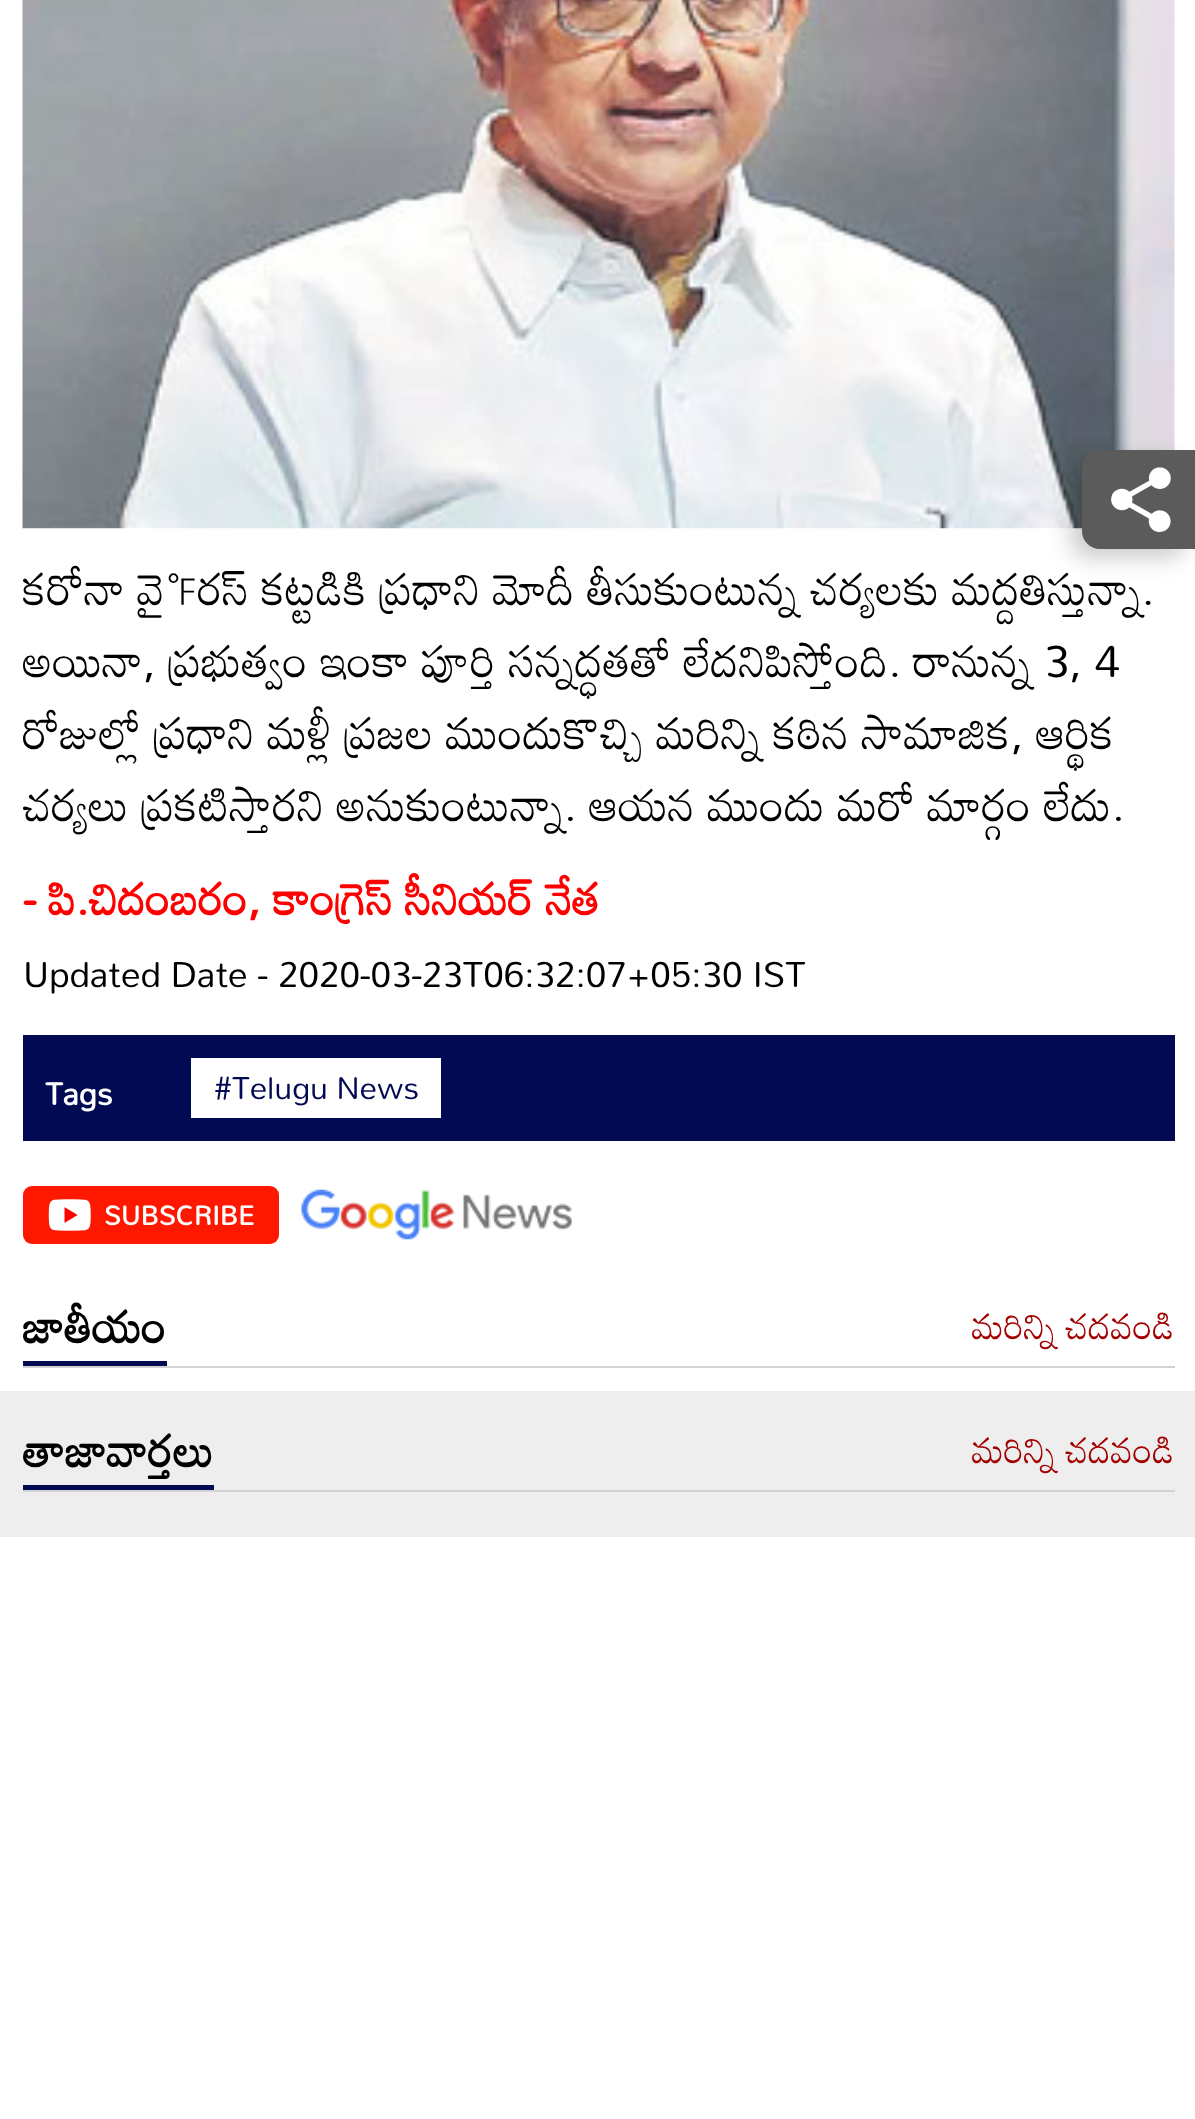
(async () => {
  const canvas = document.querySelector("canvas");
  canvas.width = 1195;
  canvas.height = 2119;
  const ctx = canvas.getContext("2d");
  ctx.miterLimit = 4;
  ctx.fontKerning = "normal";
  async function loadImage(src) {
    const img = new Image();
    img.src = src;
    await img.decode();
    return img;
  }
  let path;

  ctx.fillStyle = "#ffffff";
  ctx.fillRect(0, 0, 1195, 2119);
  ctx.drawImage(await loadImage("img/2.png"), 22, 0, 1153, 529);
  ctx.fillStyle = "rgba(0, 0, 0, 0.2)";
  ctx.filter = "blur(11px)";
  ctx.beginPath();
  ctx.roundRect(1071, 459, 115, 99, 18);
  ctx.fill();
  ctx.filter = "none";
  ctx.fillStyle = "#5b5b5b";
  path = new Path2D("M1100 450H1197V549H1100C1090 549 1082 541 1082 531V468C1082 458 1090 450 1100 450Z");
  ctx.fill(path);
  ctx.drawImage(await loadImage("img/1.png"), 1111, 467, 60, 66);
  ctx.fillStyle = "#030a54";
  ctx.fillRect(23, 1035, 1152, 106);
  ctx.fillStyle = "#ffffff";
  ctx.fillRect(191, 1058, 250, 60);
  ctx.fillStyle = "#ff1800";
  ctx.beginPath();
  ctx.roundRect(23, 1186, 256, 58, 9);
  ctx.fill();
  ctx.drawImage(await loadImage("img/3.png"), 48, 1199, 43, 32);
  ctx.drawImage(await loadImage("img/4.png"), 301, 1189, 271, 51);
  for (const [x, y, w, h, color] of [
    [23, 1366, 1152, 2, "#d2d2d2"],
    [23, 1361, 144, 5, "#030a54"],
    [0, 1391, 1195, 146, "#eeeeee"],
    [23, 1490, 1152, 2, "#d2d2d2"],
    [23, 1485, 191, 5, "#030a54"],
  ]) {
    ctx.fillStyle = color;
    ctx.fillRect(x, y, w, h);
  }
  ctx.font = "45px Mandali";
  ctx.fillStyle = "#000000";
  for (const [text, x, y] of [
    ["కరోనా వైరస్‌ కట్టడికి ప్రధాని మోదీ తీసుకుంటున్న చర్యలకు మద్దతిస్తున్నా.", 23, 605],
    ["అయినా, ప్రభుత్వం ఇంకా పూర్తి సన్నద్ధతతో లేదనిపిస్తోంది. రానున్న 3, 4", 23, 677],
    ["రోజుల్లో ప్రధాని మళ్లీ ప్రజల ముందుకొచ్చి మరిన్ని కఠిన సామాజిక, ఆర్థిక", 23, 749],
    ["చర్యలు ప్రకటిస్తారని అనుకుంటున్నా. ఆయన ముందు మరో మార్గం లేదు.", 23, 821],
  ]) {
    ctx.fillText(text, x, y);
  }
  ctx.font = "bold 45px Mandali";
  ctx.fillStyle = "#ff0000";
  ctx.fillText("- పి.చిదంబరం, కాంగ్రెస్‌ సీనియర్‌ నేత", 23, 915);
  ctx.font = "36px Mandali";
  ctx.fillStyle = "#000000";
  ctx.fillText("Updated Date - 2020-03-23T06:32:07+05:30 IST", 23, 987);
  ctx.font = "bold 31.5px Mandali";
  ctx.fillStyle = "#ffffff";
  ctx.fillText("Tags", 45, 1105);
  ctx.font = "31.5px Mandali";
  ctx.fillStyle = "#030a54";
  ctx.fillText("#Telugu News", 214, 1099);
  ctx.font = "bold 27px Mandali";
  ctx.fillStyle = "#ffffff";
  ctx.fillText("SUBSCRIBE", 104, 1225);
  ctx.font = "bold 45px Mandali";
  ctx.fillStyle = "#000000";
  ctx.fillText("జాతీయం", 23, 1343);
  ctx.font = "36px Mandali";
  ctx.fillStyle = "#a30000";
  ctx.fillText("మరిన్ని చదవండి", 972, 1339);
  ctx.font = "bold 45px Mandali";
  ctx.fillStyle = "#000000";
  ctx.fillText("తాజావార్తలు", 23, 1467);
  ctx.font = "36px Mandali";
  ctx.fillStyle = "#a30000";
  ctx.fillText("మరిన్ని చదవండి", 972, 1463);
})();
